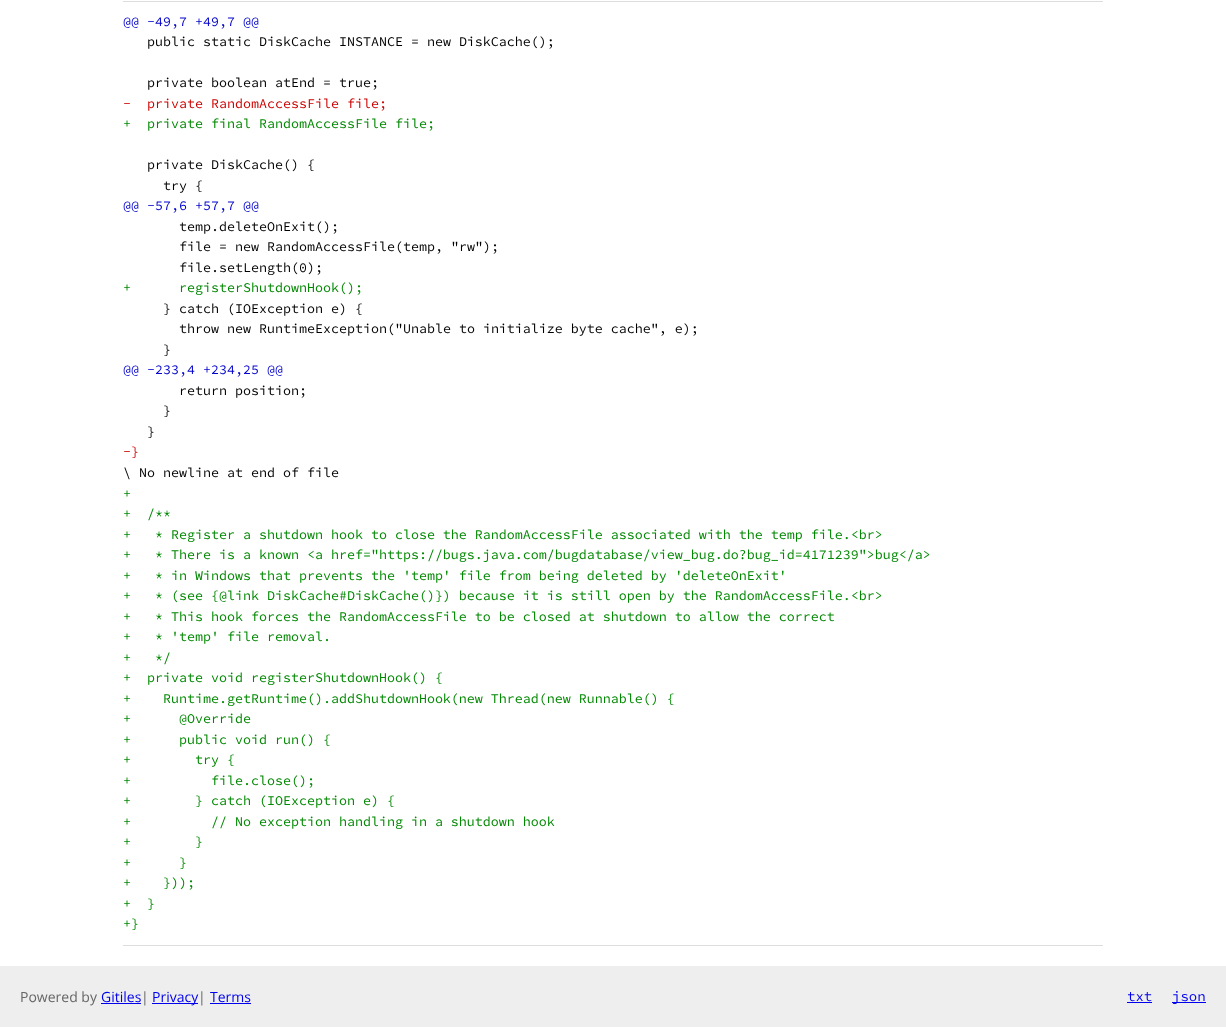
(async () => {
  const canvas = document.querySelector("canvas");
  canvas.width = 1226;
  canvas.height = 1027;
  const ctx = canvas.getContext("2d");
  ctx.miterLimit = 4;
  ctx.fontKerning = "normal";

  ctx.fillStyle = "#ffffff";
  ctx.fillRect(0, 0, 1226, 1027);
  for (const [x, y, w, h, color] of [
    [123, 1, 980, 1, "#dddddd"],
    [123, 945, 980, 1, "#dddddd"],
    [0, 966, 1226, 61, "#eeeeee"],
    [101, 1003, 40, 1, "#0000ee"],
    [152, 1003, 46, 1, "#0000ee"],
    [210, 1003, 41, 1, "#0000ee"],
    [1127, 1002, 25, 1, "#0000ee"],
    [1172, 1002, 34, 1, "#0000ee"],
  ]) {
    ctx.fillStyle = color;
    ctx.fillRect(x, y, w, h);
  }
  ctx.font = "200 13.33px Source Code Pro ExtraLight";
  ctx.fillStyle = "#0000cc";
  ctx.fillText("@@ -49,7 +49,7 @@", 123, 26);
  ctx.fillStyle = "#000000";
  ctx.fillText("public static DiskCache INSTANCE = new DiskCache();", 147, 46);
  ctx.fillText("private boolean atEnd = true;", 147, 87);
  ctx.fillStyle = "#cc0000";
  ctx.fillText("-  private RandomAccessFile file;", 123, 108);
  ctx.fillStyle = "#008800";
  ctx.fillText("+  private final RandomAccessFile file;", 123, 128);
  ctx.fillStyle = "#000000";
  ctx.fillText("private DiskCache() {", 147, 169);
  ctx.fillText("try {", 163, 190);
  ctx.fillStyle = "#0000cc";
  ctx.fillText("@@ -57,6 +57,7 @@", 123, 210);
  ctx.fillStyle = "#000000";
  for (const [text, x, y] of [
    ["temp.deleteOnExit();", 179, 231],
    ["file = new RandomAccessFile(temp, \"rw\");", 179, 251],
    ["file.setLength(0);", 179, 272],
  ]) {
    ctx.fillText(text, x, y);
  }
  ctx.fillStyle = "#008800";
  ctx.fillText("+      registerShutdownHook();", 123, 292);
  ctx.fillStyle = "#000000";
  for (const [text, x, y] of [
    ["} catch (IOException e) {", 163, 313],
    ["throw new RuntimeException(\"Unable to initialize byte cache\", e);", 179, 333],
    ["}", 163, 354],
  ]) {
    ctx.fillText(text, x, y);
  }
  ctx.fillStyle = "#0000cc";
  ctx.fillText("@@ -233,4 +234,25 @@", 123, 374);
  ctx.fillStyle = "#000000";
  for (const [text, x, y] of [
    ["return position;", 179, 395],
    ["}", 163, 415],
    ["}", 147, 436],
  ]) {
    ctx.fillText(text, x, y);
  }
  ctx.fillStyle = "#cc0000";
  ctx.fillText("-}", 123, 456);
  ctx.fillStyle = "#000000";
  ctx.fillText("\\ No newline at end of file", 123, 477);
  ctx.fillStyle = "#008800";
  for (const [text, x, y] of [
    ["+", 123, 498],
    ["+  /**", 123, 518],
    ["+   * Register a shutdown hook to close the RandomAccessFile associated with the temp file.<br>", 123, 539],
    ["+   * There is a known <a href=\"https://bugs.java.com/bugdatabase/view_bug.do?bug_id=4171239\">bug<\/a>", 123, 559],
    ["+   * in Windows that prevents the 'temp' file from being deleted by 'deleteOnExit'", 123, 580],
    ["+   * (see {@link DiskCache#DiskCache()}) because it is still open by the RandomAccessFile.<br>", 123, 600],
    ["+   * This hook forces the RandomAccessFile to be closed at shutdown to allow the correct", 123, 621],
    ["+   * 'temp' file removal.", 123, 641],
    ["+   */", 123, 662],
    ["+  private void registerShutdownHook() {", 123, 682],
    ["+    Runtime.getRuntime().addShutdownHook(new Thread(new Runnable() {", 123, 703],
    ["+      @Override", 123, 723],
    ["+      public void run() {", 123, 744],
    ["+        try {", 123, 764],
    ["+          file.close();", 123, 785],
    ["+        } catch (IOException e) {", 123, 805],
    ["+          // No exception handling in a shutdown hook", 123, 826],
    ["+        }", 123, 846],
    ["+      }", 123, 867],
    ["+    }));", 123, 887],
    ["+  }", 123, 908],
    ["+}", 123, 928],
  ]) {
    ctx.fillText(text, x, y);
  }
  ctx.font = "14px Open Sans";
  ctx.fillStyle = "#666666";
  ctx.fillText("Powered by", 20, 1002);
  ctx.fillStyle = "#0000ee";
  ctx.fillText("Gitiles", 101, 1002);
  ctx.fillStyle = "#666666";
  ctx.fillText("|", 141, 1002);
  ctx.fillStyle = "#0000ee";
  ctx.fillText("Privacy", 152, 1002);
  ctx.fillStyle = "#666666";
  ctx.fillText("|", 198, 1002);
  ctx.fillStyle = "#0000ee";
  ctx.fillText("Terms", 210, 1002);
  ctx.font = "200 14px Source Code Pro ExtraLight";
  ctx.fillText("txt", 1127, 1001);
  ctx.fillText("json", 1172, 1001);
})();
